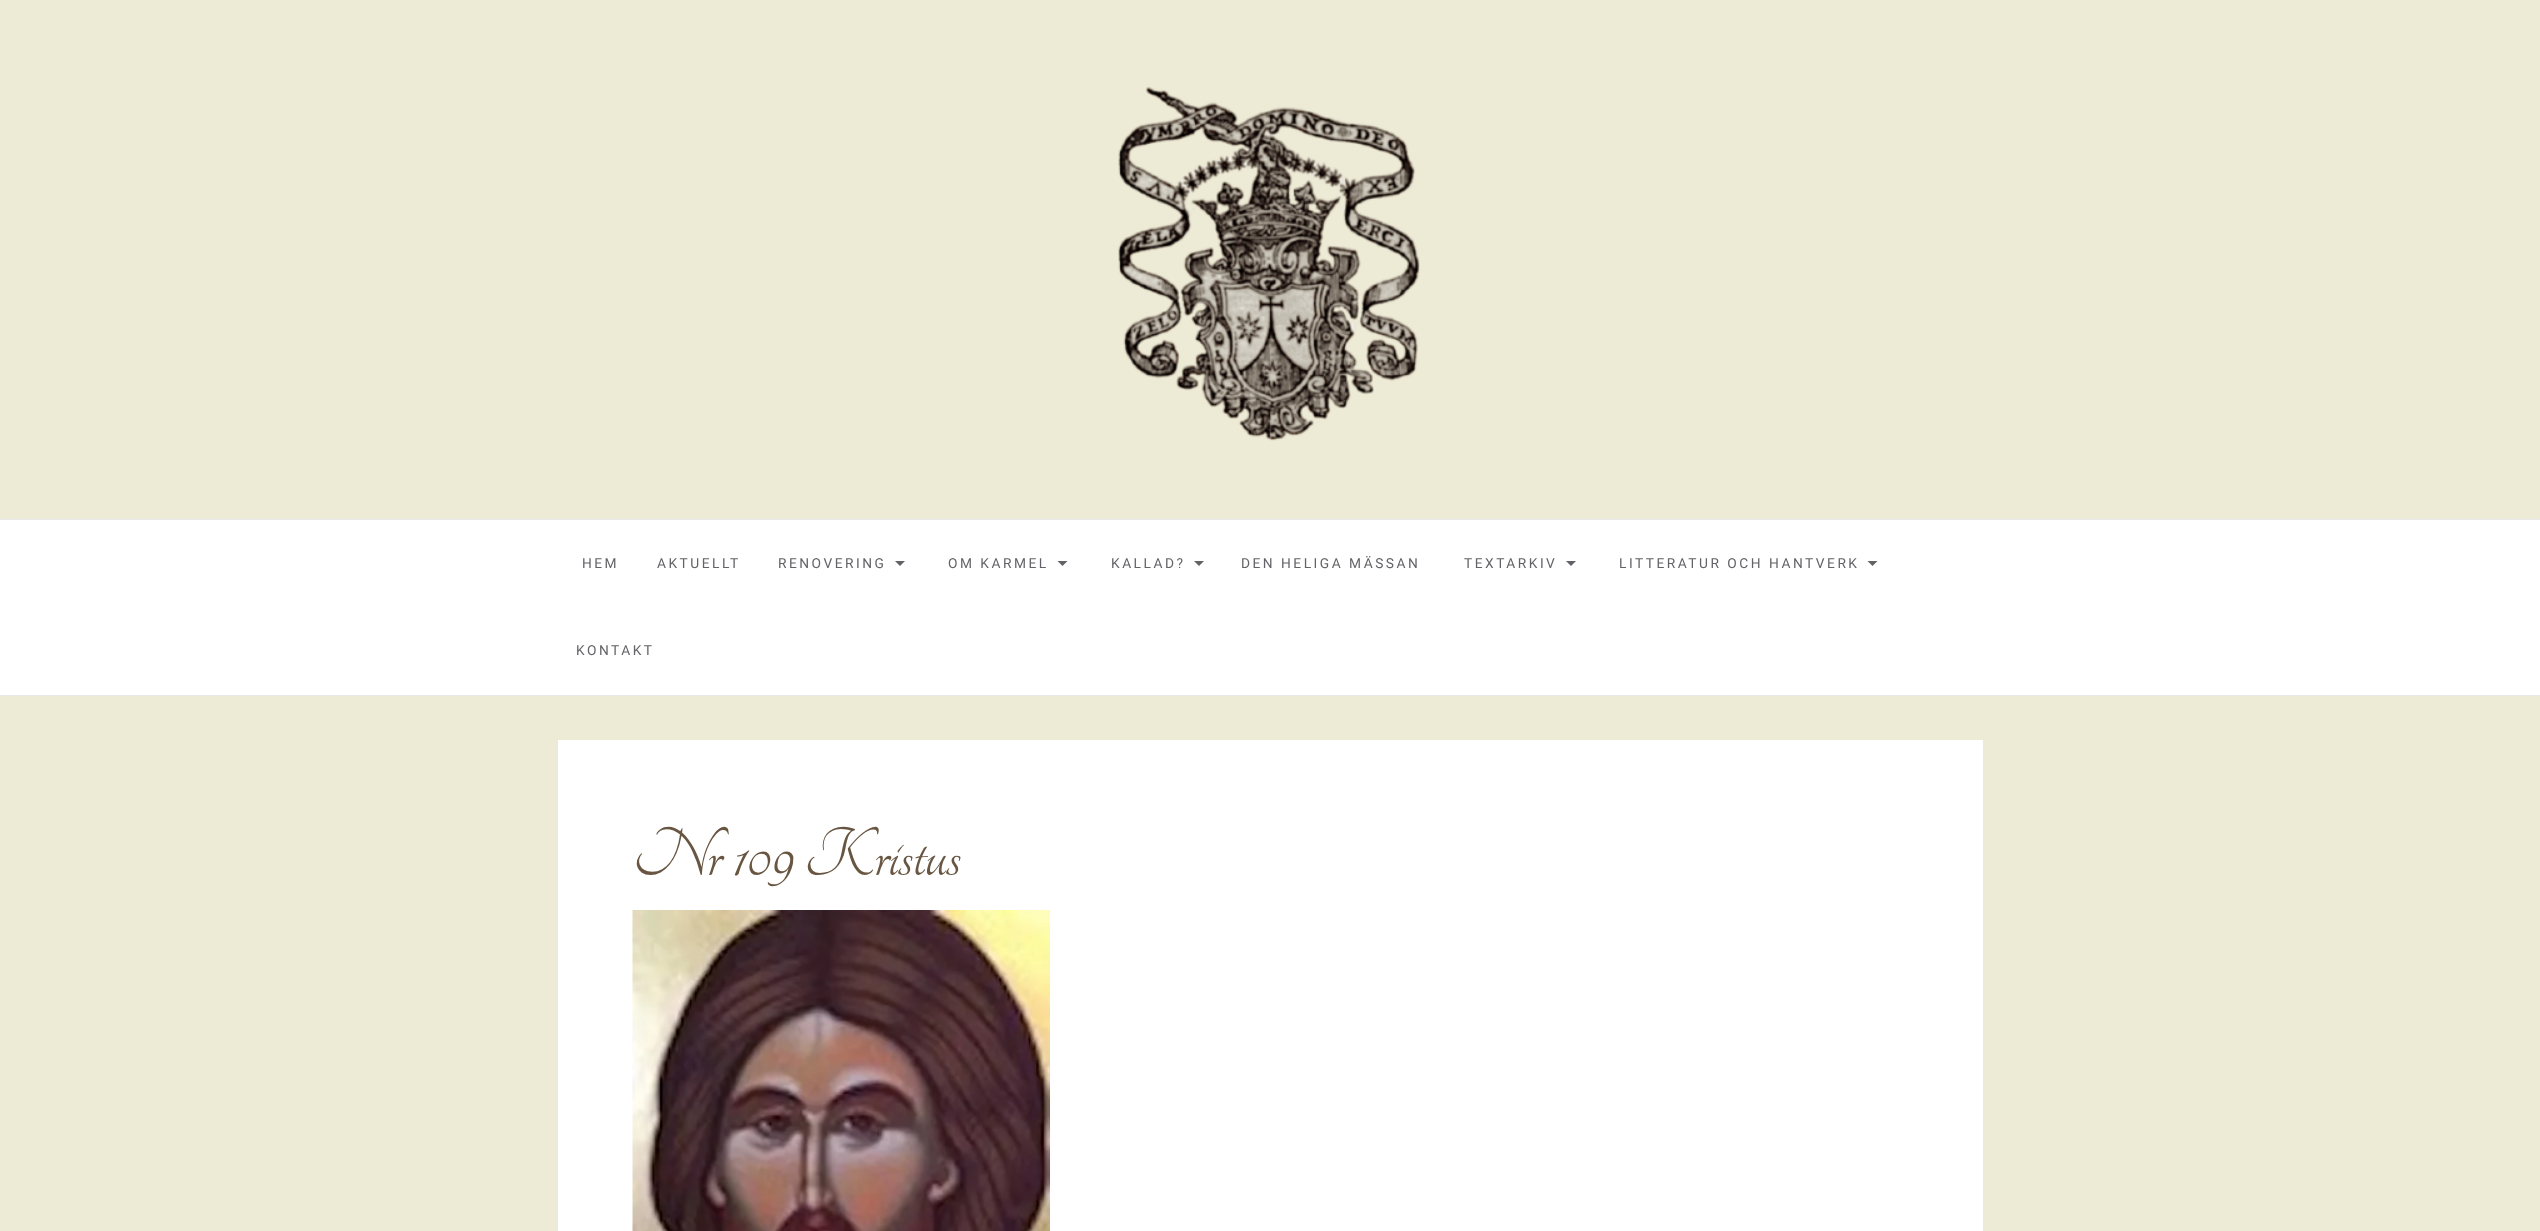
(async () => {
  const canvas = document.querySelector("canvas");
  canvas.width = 2540;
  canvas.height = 1231;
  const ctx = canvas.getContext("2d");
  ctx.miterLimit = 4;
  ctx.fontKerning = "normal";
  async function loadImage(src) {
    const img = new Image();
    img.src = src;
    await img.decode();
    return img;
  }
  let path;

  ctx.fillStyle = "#edead6";
  ctx.fillRect(0, 0, 2540, 1231);
  ctx.drawImage(await loadImage("img/1.png"), 1118, 86, 302, 355);
  for (const [x, y, w, h, color] of [
    [0, 520, 2540, 175, "#ffffff"],
    [0, 519, 2540, 1, "#e8e8e8"],
    [0, 695, 2540, 1, "#e8e8e8"],
  ]) {
    ctx.fillStyle = color;
    ctx.fillRect(x, y, w, h);
  }
  ctx.fillStyle = "#636367";
  path = new Path2D("M895 561H905L900 566Z");
  ctx.fill(path);
  path = new Path2D("M1057.5 561H1067.5L1062.5 566Z");
  ctx.fill(path);
  path = new Path2D("M1194 561H1204L1199 566Z");
  ctx.fill(path);
  path = new Path2D("M1566 561H1576L1571 566Z");
  ctx.fill(path);
  path = new Path2D("M1867.5 561H1877.5L1872.5 566Z");
  ctx.fill(path);
  ctx.fillStyle = "#ffffff";
  ctx.fillRect(558, 740, 1425, 491);
  ctx.drawImage(await loadImage("img/2.png"), 632, 910, 418, 321);
  ctx.letterSpacing = "2.5px";
  ctx.font = "13.75px Roboto";
  ctx.fillStyle = "#636367";
  for (const [text, x, y] of [
    ["HEM", 582, 568],
    ["AKTUELLT", 657, 568],
    ["RENOVERING", 778, 568],
    ["OM KARMEL", 948, 568],
    ["KALLAD?", 1111, 568],
    ["DEN HELIGA MÄSSAN", 1241, 568],
    ["TEXTARKIV", 1464, 568],
    ["LITTERATUR OCH HANTVERK", 1619, 568],
    ["KONTAKT", 576, 655],
  ]) {
    ctx.fillText(text, x, y);
  }
  ctx.letterSpacing = "-0.5px";
  ctx.font = "75px Tangerine";
  ctx.fillStyle = "#685642";
  ctx.fillText("Nr 109 Kristus", 633, 875);
})();
